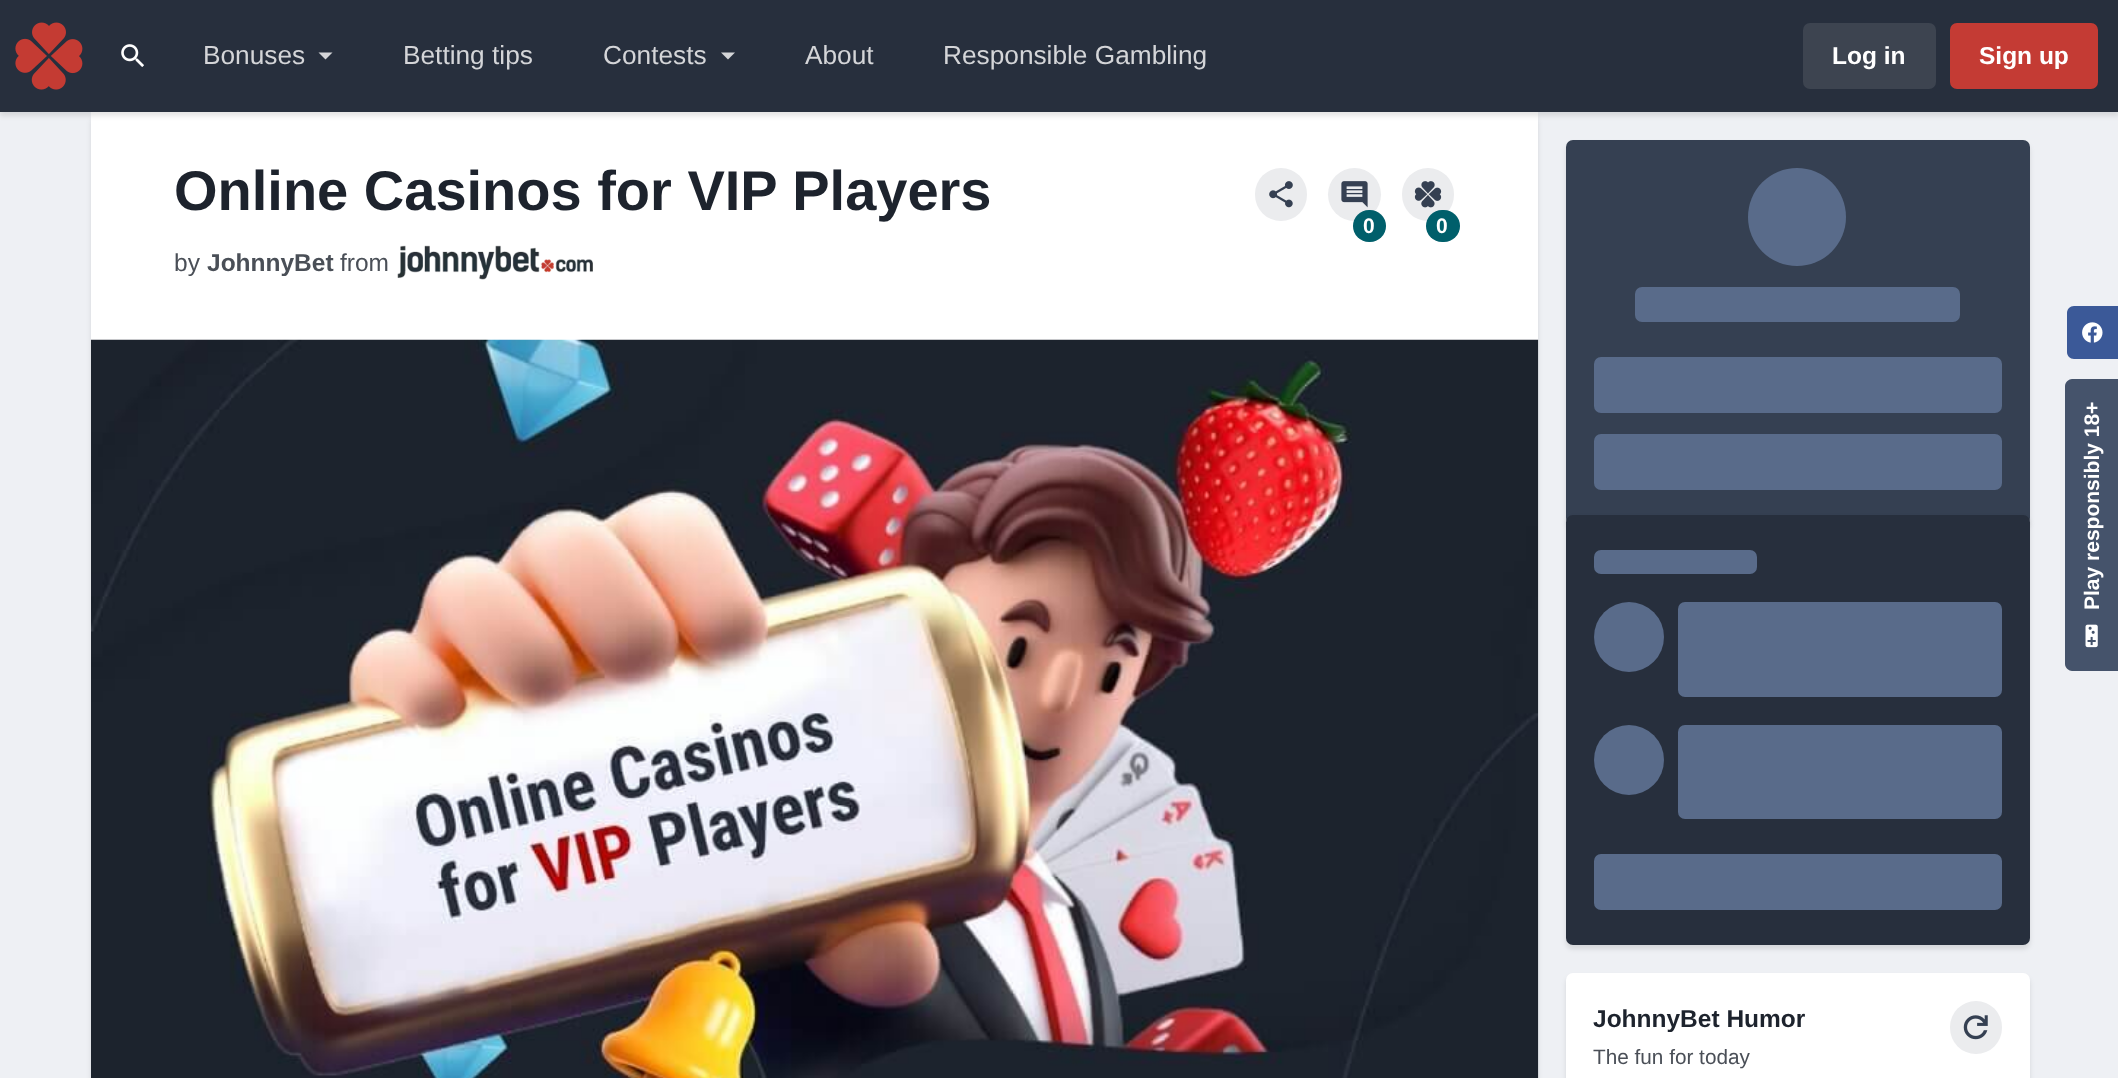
(async () => {
  const canvas = document.querySelector("canvas");
  canvas.width = 2118;
  canvas.height = 1078;
  const ctx = canvas.getContext("2d");
  ctx.miterLimit = 4;
  ctx.fontKerning = "normal";
  async function loadImage(src) {
    const img = new Image();
    img.src = src;
    await img.decode();
    return img;
  }
  let path;

  ctx.fillStyle = "#eef0f4";
  ctx.fillRect(0, 0, 2118, 1078);
  ctx.fillStyle = "rgba(0, 0, 0, 0.1)";
  ctx.filter = "blur(2.5px)";
  ctx.beginPath();
  ctx.roundRect(91, 116, 1447, 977, 7);
  ctx.fill();
  ctx.filter = "none";
  ctx.fillStyle = "#ffffff";
  ctx.fillRect(91, 112, 1447, 228);
  ctx.fillStyle = "rgba(0, 0, 0, 0.1)";
  ctx.filter = "blur(2.5px)";
  ctx.beginPath();
  ctx.rect(0, 4, 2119, 112);
  ctx.fill();
  ctx.filter = "none";
  ctx.fillStyle = "#272f3d";
  ctx.fillRect(0, 0, 2118, 112);
  ctx.drawImage(await loadImage("img/1.png"), 15, 22, 68, 68);
  ctx.drawImage(await loadImage("img/2.png"), 121, 44, 23, 23);
  ctx.fillStyle = "#d4d5d8";
  path = new Path2D("M318.5 52.5H332.5L325.5 59.5Z");
  ctx.fill(path);
  path = new Path2D("M721 52.5H735L728 59.5Z");
  ctx.fill(path);
  ctx.fillStyle = "#3d4450";
  ctx.beginPath();
  ctx.roundRect(1803, 23, 133, 66, 7);
  ctx.fill();
  ctx.fillStyle = "#c43b34";
  ctx.beginPath();
  ctx.roundRect(1951, 24, 146, 64, 6);
  ctx.fill();
  ctx.strokeStyle = "#c43b34";
  ctx.lineWidth = 2;
  ctx.stroke();
  ctx.drawImage(await loadImage("img/3.png"), 397, 245, 196, 35);
  ctx.fillStyle = "#ebecee";
  ctx.beginPath();
  ctx.roundRect(1255, 168, 52, 53, 26);
  ctx.fill();
  ctx.drawImage(await loadImage("img/4.png"), 1269, 181, 24, 27);
  ctx.beginPath();
  ctx.arc(1354.5, 194.5, 26.5, 0, Math.PI * 2);
  ctx.fill();
  ctx.drawImage(await loadImage("img/5.png"), 1341, 181, 27, 27);
  ctx.fillStyle = "#005f6b";
  ctx.beginPath();
  ctx.roundRect(1353, 210, 33, 32, 16);
  ctx.fill();
  ctx.fillStyle = "#ebecee";
  ctx.beginPath();
  ctx.roundRect(1402, 168, 52, 53, 26);
  ctx.fill();
  ctx.drawImage(await loadImage("img/6.png"), 1414, 181, 28, 27);
  ctx.fillStyle = "#005f6b";
  ctx.beginPath();
  ctx.roundRect(1426, 210, 34, 32, 16);
  ctx.fill();
  ctx.drawImage(await loadImage("img/7.png"), 91, 339, 1448, 739);
  ctx.fillStyle = "rgba(0, 0, 0, 0.1)";
  ctx.filter = "blur(2.5px)";
  ctx.beginPath();
  ctx.roundRect(1566, 144, 464, 385, 7);
  ctx.fill();
  ctx.filter = "none";
  ctx.fillStyle = "#354052";
  ctx.beginPath();
  ctx.roundRect(1566, 140, 464, 385, 7);
  ctx.fill();
  ctx.fillStyle = "#596b8a";
  ctx.beginPath();
  ctx.arc(1797, 217, 49, 0, Math.PI * 2);
  ctx.fill();
  ctx.beginPath();
  ctx.roundRect(1635, 287, 325, 35, 7);
  ctx.fill();
  ctx.beginPath();
  ctx.roundRect(1594, 357, 408, 56, 7);
  ctx.fill();
  ctx.beginPath();
  ctx.roundRect(1594, 434, 408, 56, 7);
  ctx.fill();
  ctx.fillStyle = "rgba(0, 0, 0, 0.1)";
  ctx.filter = "blur(2.5px)";
  ctx.beginPath();
  ctx.roundRect(1566, 518, 464, 431, 7);
  ctx.fill();
  ctx.filter = "none";
  ctx.fillStyle = "#272f3d";
  ctx.beginPath();
  ctx.roundRect(1566, 515, 464, 430, 7);
  ctx.fill();
  ctx.fillStyle = "#596b8a";
  ctx.beginPath();
  ctx.roundRect(1594, 550, 163, 24, 7);
  ctx.fill();
  ctx.beginPath();
  ctx.arc(1629, 637, 35, 0, Math.PI * 2);
  ctx.fill();
  ctx.beginPath();
  ctx.roundRect(1678, 602, 324, 95, 7);
  ctx.fill();
  ctx.beginPath();
  ctx.arc(1629, 760, 35, 0, Math.PI * 2);
  ctx.fill();
  ctx.beginPath();
  ctx.roundRect(1678, 725, 324, 94, 7);
  ctx.fill();
  ctx.beginPath();
  ctx.roundRect(1594, 854, 408, 56, 7);
  ctx.fill();
  ctx.fillStyle = "rgba(0, 0, 0, 0.1)";
  ctx.filter = "blur(2.5px)";
  ctx.beginPath();
  ctx.roundRect(1566, 977, 464, 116, 7);
  ctx.fill();
  ctx.filter = "none";
  ctx.fillStyle = "#ffffff";
  ctx.beginPath();
  ctx.roundRect(1566, 973, 464, 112, 7);
  ctx.fill();
  ctx.fillStyle = "#ebecee";
  ctx.beginPath();
  ctx.roundRect(1950, 1001, 52, 53, 26);
  ctx.fill();
  ctx.drawImage(await loadImage("img/8.png"), 1963, 1015, 25, 25);
  ctx.fillStyle = "#3b5998";
  path = new Path2D("M2074 306H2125V359H2074C2070 359 2067 356 2067 352V313C2067 309 2070 306 2074 306Z");
  ctx.fill(path);
  ctx.drawImage(await loadImage("img/9.png"), 2082, 322, 21, 21);
  ctx.fillStyle = "#45536b";
  path = new Path2D("M2065 664V386C2065 382 2069 379 2072 379H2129V671H2072C2069 671 2065 668 2065 664Z");
  ctx.fill(path);
  ctx.drawImage(await loadImage("img/10.png"), 2085, 624, 13, 24);
  ctx.font = "26.25px Liberation Sans";
  ctx.fillStyle = "#d4d5d8";
  for (const [text, x, y] of [
    ["Bonuses", 203, 64],
    ["Betting tips", 403, 64],
    ["Contests", 603, 64],
    ["About", 805, 64],
    ["Responsible Gambling", 943, 64],
  ]) {
    ctx.fillText(text, x, y);
  }
  ctx.font = "bold 24.5px Liberation Sans";
  ctx.fillStyle = "#ffffff";
  ctx.fillText("Log in", 1832, 64);
  ctx.fillText("Sign up", 1979, 64);
  ctx.font = "bold 56px Liberation Sans";
  ctx.fillStyle = "#1d232d";
  ctx.fillText("Online Casinos for VIP Players", 174, 210);
  ctx.font = "24.5px Liberation Sans";
  ctx.fillStyle = "#4a4f57";
  ctx.fillText("by", 174, 271);
  ctx.font = "bold 24.5px Liberation Sans";
  ctx.fillText("JohnnyBet", 207, 271);
  ctx.font = "24.5px Liberation Sans";
  ctx.fillText("from", 340, 271);
  ctx.font = "bold 21px Liberation Sans";
  ctx.fillStyle = "#ffffff";
  ctx.fillText("0", 1363, 233);
  ctx.fillText("0", 1436, 233);
  ctx.font = "bold 24.5px Liberation Sans";
  ctx.fillStyle = "#1d232d";
  ctx.fillText("JohnnyBet Humor", 1593, 1027);
  ctx.font = "20.75px Liberation Sans";
  ctx.fillStyle = "#4a4f57";
  ctx.fillText("The fun for today", 1593, 1064);
  ctx.font = "bold 21px Liberation Sans";
  ctx.fillStyle = "#ffffff";
  ctx.save();
  ctx.translate(2099, 610);
  ctx.rotate(-90 * Math.PI / 180);
  ctx.fillText("Play responsibly 18+", 0, 0);
  ctx.restore();
})();
